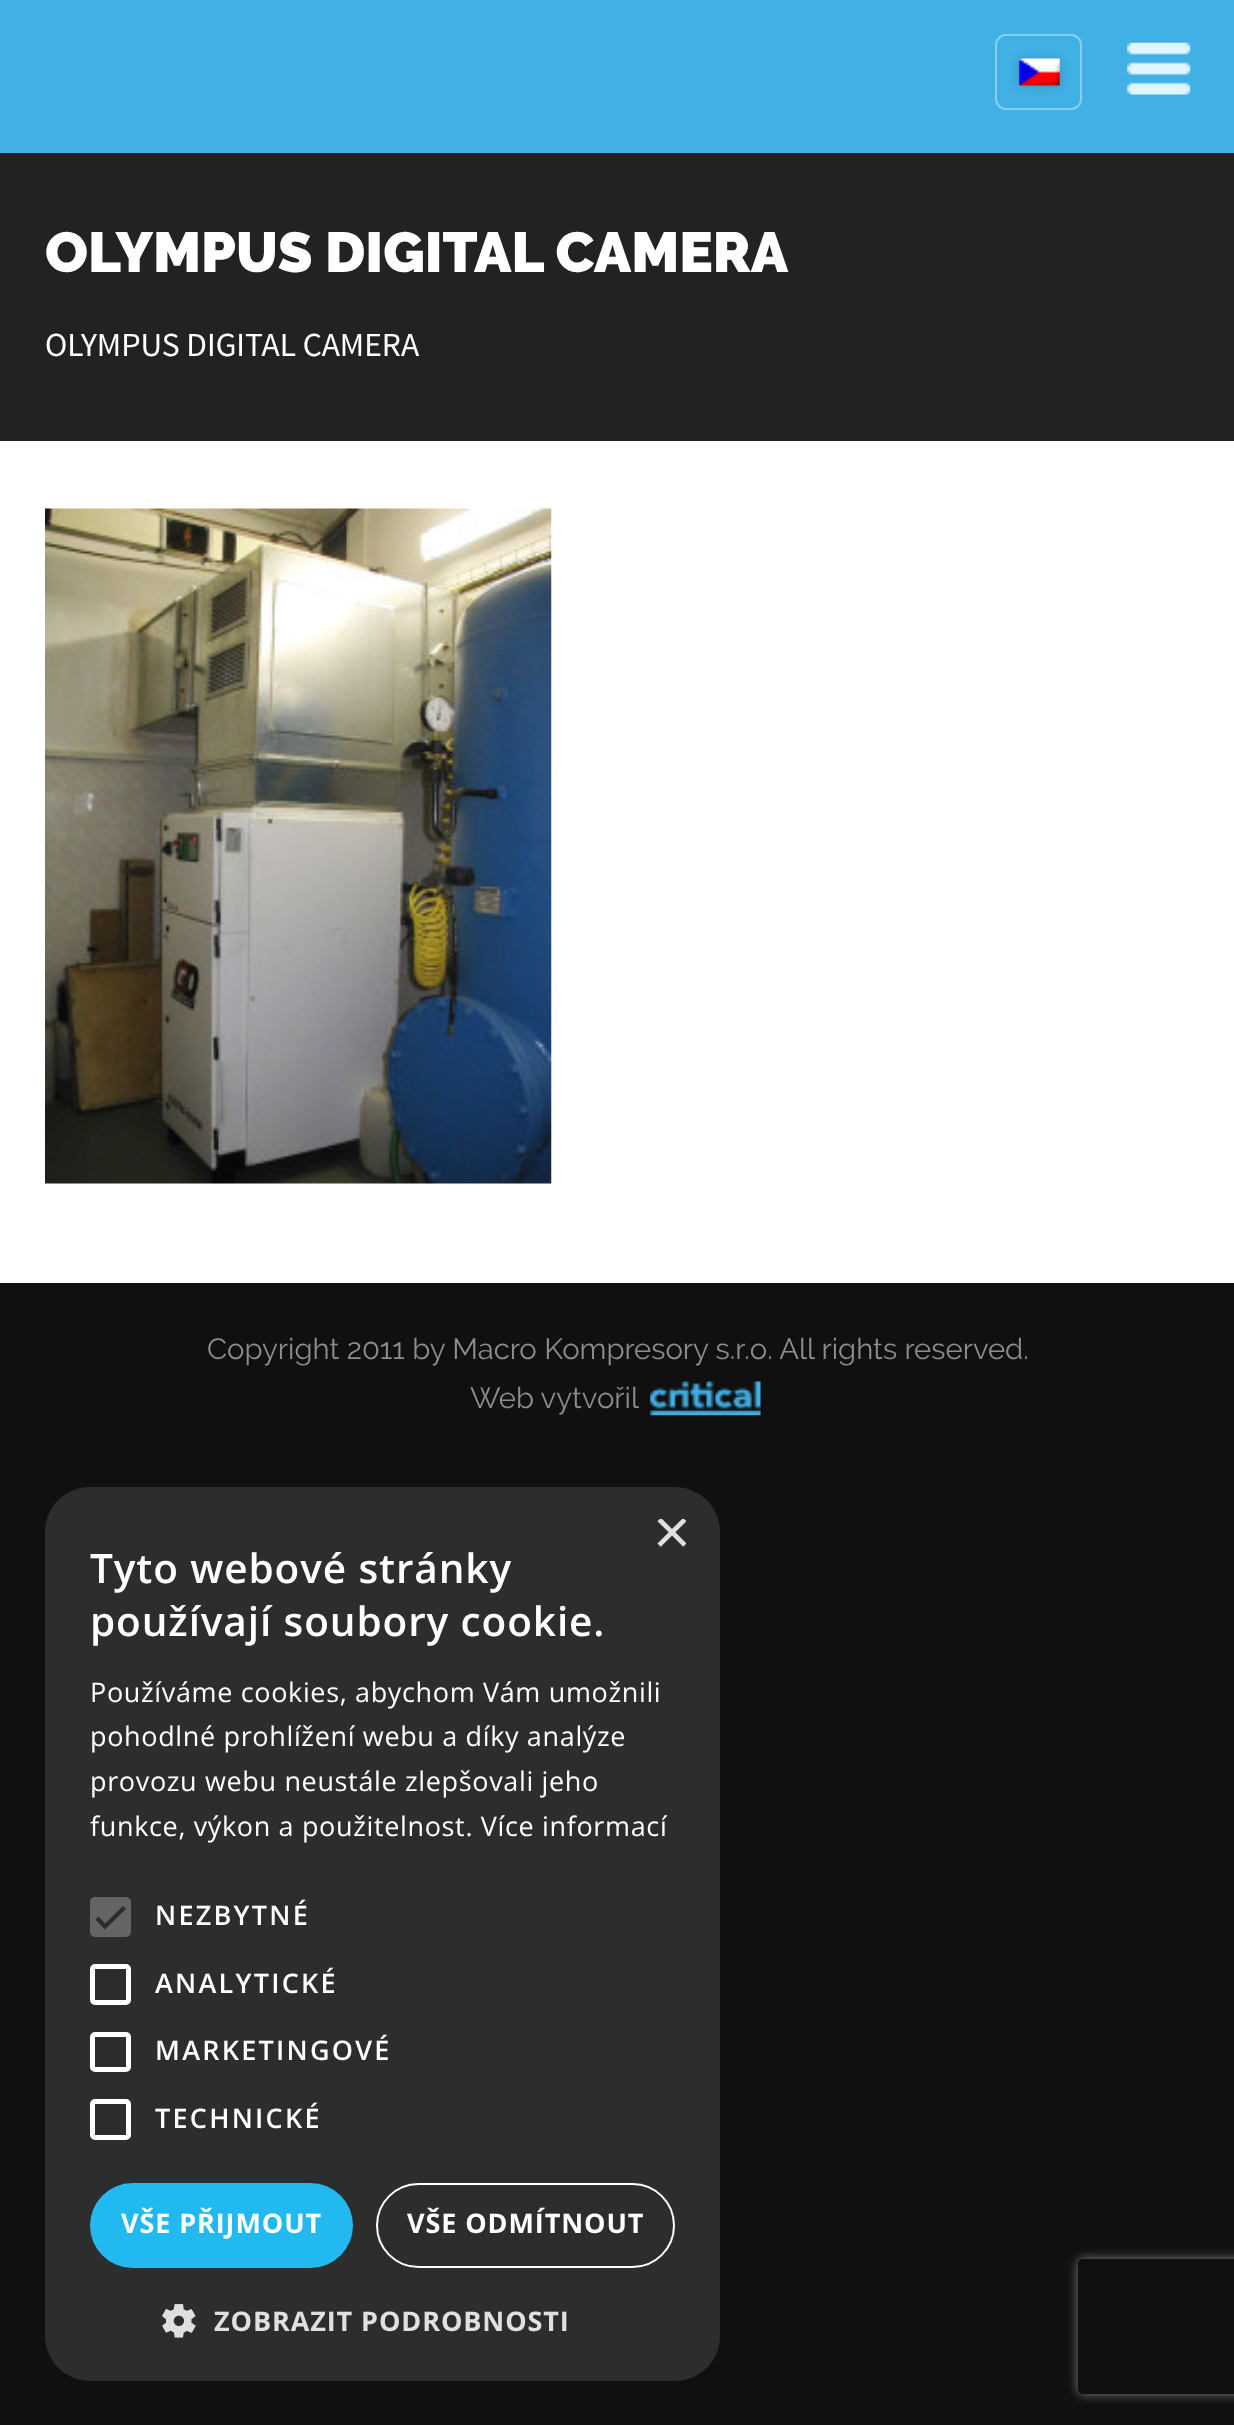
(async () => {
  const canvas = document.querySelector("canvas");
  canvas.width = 1234;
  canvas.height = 2425;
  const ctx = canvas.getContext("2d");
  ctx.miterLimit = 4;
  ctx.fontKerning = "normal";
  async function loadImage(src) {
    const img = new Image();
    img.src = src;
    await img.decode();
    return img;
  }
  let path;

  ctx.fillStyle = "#101011";
  ctx.fillRect(0, 0, 1234, 2425);
  ctx.fillStyle = "#41b0e5";
  ctx.fillRect(0, 0, 1234, 153);
  ctx.beginPath();
  ctx.roundRect(996, 35, 85, 74, 10);
  ctx.strokeStyle = "#88ceef";
  ctx.lineWidth = 2;
  ctx.stroke();
  ctx.fillStyle = "rgba(0, 0, 0, 0.15)";
  ctx.filter = "blur(5.5px)";
  ctx.beginPath();
  ctx.rect(1019, 59, 41, 27);
  ctx.fill();
  ctx.filter = "none";
  ctx.drawImage(await loadImage("img/1.png"), 1019, 58, 41, 28);
  ctx.drawImage(await loadImage("img/2.png"), 1127, 42, 64, 53);
  ctx.fillStyle = "#ffffff";
  ctx.fillRect(0, 441, 1234, 842);
  ctx.fillStyle = "#222222";
  ctx.fillRect(0, 153, 1234, 288);
  ctx.drawImage(await loadImage("img/3.png"), 45, 508, 507, 676);
  ctx.drawImage(await loadImage("img/4.png"), 650, 1381, 111, 35);
  ctx.fillStyle = "#2d2d2d";
  ctx.beginPath();
  ctx.roundRect(45, 1487, 675, 894, 45);
  ctx.fill();
  ctx.fillStyle = "#646464";
  ctx.beginPath();
  ctx.roundRect(90, 1897, 41, 40, 5);
  ctx.fill();
  path = new Path2D("M97 1918L105 1926.5L124.5 1907.5");
  ctx.strokeStyle = "#2d2d2d";
  ctx.lineWidth = 4.1;
  ctx.stroke(path);
  ctx.beginPath();
  ctx.roundRect(92.5, 1966.5, 36, 36, 2.5);
  ctx.strokeStyle = "#ffffff";
  ctx.lineWidth = 5;
  ctx.stroke();
  ctx.beginPath();
  ctx.roundRect(92.5, 2034.5, 36, 35, 2.5);
  ctx.stroke();
  ctx.beginPath();
  ctx.roundRect(92.5, 2101.5, 36, 36, 2.5);
  ctx.stroke();
  ctx.fillStyle = "#22b8f0";
  ctx.beginPath();
  ctx.roundRect(90, 2183, 263, 85, 42.5);
  ctx.fill();
  ctx.beginPath();
  ctx.roundRect(377, 2184, 297, 83, 41.5);
  ctx.lineWidth = 2;
  ctx.stroke();
  ctx.drawImage(await loadImage("img/5.png"), 162, 2304, 34, 34);
  ctx.save();
  path = new Path2D("M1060 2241H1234V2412H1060ZM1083 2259H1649C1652 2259 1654 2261 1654 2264V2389C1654 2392 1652 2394 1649 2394H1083C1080 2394 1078 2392 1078 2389V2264C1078 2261 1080 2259 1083 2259Z");
  ctx.clip(path, "evenodd");
  ctx.fillStyle = "#808080";
  ctx.filter = "blur(5.5px)";
  ctx.beginPath();
  ctx.roundRect(1078, 2259, 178, 135, 5);
  ctx.fill();
  ctx.filter = "none";
  ctx.restore();
  ctx.font = "900 56.25px Raleway";
  ctx.fillStyle = "#ffffff";
  ctx.fillText("OLYMPUS DIGITAL CAMERA", 45, 272);
  ctx.font = "33.75px Source Sans Pro";
  ctx.fillText("OLYMPUS DIGITAL CAMERA", 45, 356);
  ctx.font = "29.25px Raleway";
  ctx.fillStyle = "#8d8d8d";
  ctx.fillText("Copyright 2011 by Macro Kompresory s.r.o. All rights reserved.", 207, 1359);
  ctx.fillText("Web vytvořil", 470, 1408);
  ctx.save();
  ctx.beginPath();
  ctx.rect(653, 1519, 33, 34);
  ctx.clip();
  ctx.font = "65px Liberation Sans";
  ctx.fillStyle = "#e0e0e0";
  ctx.fillText("×", 653, 1554);
  ctx.restore();
  ctx.letterSpacing = "0.9px";
  ctx.font = "600 40.5px Open Sans";
  ctx.fillStyle = "#ffffff";
  ctx.fillText("Tyto webové stránky", 90, 1583);
  ctx.fillText("používají soubory cookie.", 90, 1636);
  ctx.letterSpacing = "0.65px";
  ctx.font = "27px Open Sans";
  for (const [text, x, y] of [
    ["Používáme cookies, abychom Vám umožnili", 90, 1702],
    ["pohodlné prohlížení webu a díky analýze", 90, 1746],
    ["provozu webu neustále zlepšovali jeho", 90, 1791],
    ["funkce, výkon a použitelnost. Více informací", 90, 1836],
  ]) {
    ctx.fillText(text, x, y);
  }
  ctx.letterSpacing = "2.25px";
  ctx.font = "600 27px Open Sans";
  for (const [text, x, y] of [
    ["NEZBYTNÉ", 155, 1925],
    ["ANALYTICKÉ", 155, 1993],
    ["MARKETINGOVÉ", 155, 2060],
    ["TECHNICKÉ", 155, 2128],
  ]) {
    ctx.fillText(text, x, y);
  }
  ctx.letterSpacing = "0.9px";
  ctx.font = "bold 27px Open Sans";
  ctx.fillText("VŠE PŘIJMOUT", 121, 2233);
  ctx.fillText("VŠE ODMÍTNOUT", 407, 2233);
  ctx.fillStyle = "#e0e0e0";
  ctx.fillText("ZOBRAZIT PODROBNOSTI", 214, 2331);
})();
